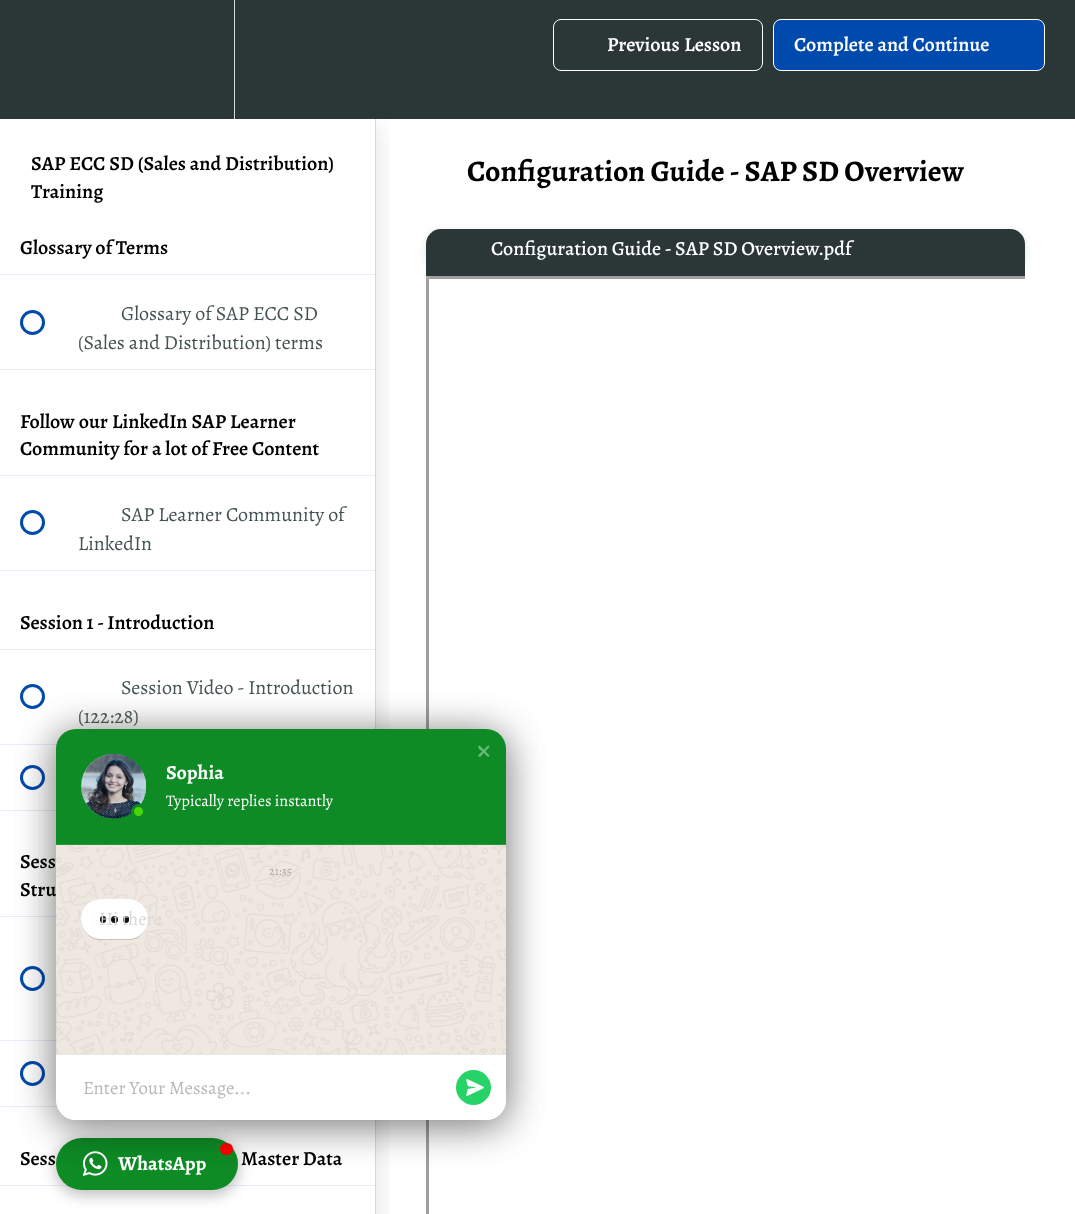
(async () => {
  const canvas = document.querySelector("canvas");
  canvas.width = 1075;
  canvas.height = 1214;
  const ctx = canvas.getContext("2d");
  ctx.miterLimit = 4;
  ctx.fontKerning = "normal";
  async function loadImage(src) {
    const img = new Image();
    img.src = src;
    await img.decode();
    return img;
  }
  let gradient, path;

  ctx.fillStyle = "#ffffff";
  ctx.fillRect(0, 0, 1075, 1214);
  ctx.save();
  ctx.beginPath();
  ctx.rect(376, 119, 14, 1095);
  ctx.clip();
  ctx.fillStyle = "rgba(32, 39, 45, 0.15)";
  ctx.filter = "blur(12.5px)";
  ctx.beginPath();
  ctx.rect(0, 126, 376, 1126);
  ctx.fill();
  ctx.filter = "none";
  ctx.restore();
  ctx.fillStyle = "#2b3636";
  ctx.fillRect(0, 0, 1075, 119);
  ctx.fillStyle = "#d7dadb";
  ctx.fillRect(234, 0, 1, 119);
  ctx.beginPath();
  ctx.roundRect(553.5, 19.5, 209, 51, 7.5);
  ctx.strokeStyle = "#ffffff";
  ctx.stroke();
  ctx.fillStyle = "#004aad";
  ctx.beginPath();
  ctx.roundRect(773.5, 19.5, 271, 51, 7.5);
  ctx.fill();
  ctx.stroke();
  for (const [x, y, w, h, color] of [
    [375, 119, 1, 1095, "#d7dadb"],
    [0, 274, 375, 1, "#e6edf7"],
    [0, 369, 375, 1, "#e6edf7"],
  ]) {
    ctx.fillStyle = color;
    ctx.fillRect(x, y, w, h);
  }
  ctx.beginPath();
  ctx.arc(32.5, 322.5, 11, 0, Math.PI * 2);
  ctx.strokeStyle = "#004aad";
  ctx.lineWidth = 3;
  ctx.stroke();
  ctx.fillRect(0, 475, 375, 1);
  ctx.fillRect(0, 570, 375, 1);
  ctx.beginPath();
  ctx.arc(32.5, 522.5, 11, 0, Math.PI * 2);
  ctx.stroke();
  ctx.fillRect(0, 649, 375, 1);
  ctx.fillRect(0, 744, 57, 1);
  ctx.beginPath();
  ctx.arc(32.5, 696.5, 11, 0, Math.PI * 2);
  ctx.stroke();
  ctx.fillRect(0, 810, 56, 1);
  ctx.beginPath();
  ctx.arc(32.5, 777.5, 11, 0, Math.PI * 2);
  ctx.stroke();
  ctx.fillRect(0, 916, 56, 1);
  ctx.fillRect(0, 1040, 57, 1);
  ctx.beginPath();
  ctx.arc(32.5, 978.5, 11, 0, Math.PI * 2);
  ctx.stroke();
  ctx.fillRect(0, 1106, 58, 1);
  ctx.beginPath();
  ctx.arc(32.5, 1073.5, 11, 0, Math.PI * 2);
  ctx.stroke();
  ctx.fillRect(0, 1185, 375, 1);
  ctx.fillStyle = "rgba(0, 0, 0, 0.1)";
  ctx.filter = "blur(4px)";
  ctx.beginPath();
  ctx.roundRect(426, 231, 599, 40, 15);
  ctx.fill();
  ctx.filter = "none";
  ctx.fillStyle = "#2b3636";
  ctx.beginPath();
  ctx.roundRect(426, 229, 599, 40, [15, 15, 0, 0]);
  ctx.fill();
  ctx.fillRect(426, 269, 599, 7);
  ctx.fillStyle = "#9f9f9f";
  path = new Path2D("M426 276H1025V279H429Z");
  ctx.fill(path);
  path = new Path2D("M426 276V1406L429 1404V279Z");
  ctx.fill(path);
  ctx.fillStyle = "rgba(0, 0, 0, 0.15)";
  ctx.filter = "blur(7.5px)";
  ctx.beginPath();
  ctx.roundRect(56, 1141, 182, 53, 26.5);
  ctx.fill();
  ctx.filter = "none";
  ctx.filter = "blur(7.5px)";
  ctx.beginPath();
  ctx.roundRect(56, 1141, 182, 53, 26.5);
  ctx.fill();
  ctx.filter = "none";
  ctx.fillStyle = "#0e8b25";
  ctx.beginPath();
  ctx.roundRect(56, 1138, 182, 52, 26);
  ctx.fill();
  ctx.drawImage(await loadImage("img/5.png"), 83, 1151, 25, 25);
  ctx.fillStyle = "#ff0000";
  ctx.beginPath();
  ctx.roundRect(220, 1143, 13, 12, 6);
  ctx.fill();
  ctx.fillStyle = "rgba(0, 0, 0, 0.3)";
  ctx.filter = "blur(19px)";
  ctx.beginPath();
  ctx.roundRect(56, 734, 450, 391, 20);
  ctx.fill();
  ctx.filter = "none";
  ctx.drawImage(await loadImage("img/1.png"), 56, 979, 450, 141);
  ctx.filter = "blur(19px)";
  ctx.beginPath();
  ctx.roundRect(56, 734, 450, 391, 20);
  ctx.fill();
  ctx.filter = "none";
  ctx.fillStyle = "#0e8b25";
  ctx.beginPath();
  ctx.roundRect(56, 729, 450, 116, [20, 20, 0, 0]);
  ctx.fill();
  ctx.fillStyle = "#6eb97c";
  path = new Path2D("M480 746L489 755L489.5 756C488.5 758 486.5 755.5 486 755L481.5 750.5C480.5 750 477 747.5 478.5 746C479 745.5 479.5 745.5 480 746Z");
  ctx.fill(path);
  path = new Path2D("M478.5 755L487.5 746L488.5 745.5C490.5 746.5 488 748.5 487.5 749L483 753.5C482.5 754.5 480 758 478.5 756.5C478 756 478 755.5 478.5 755Z");
  ctx.fill(path);
  ctx.fillStyle = "#26973b";
  ctx.fillRect(56, 844, 450, 1);
  gradient = ctx.createLinearGradient(114, 754, 114, 819);
  gradient.addColorStop(0, "#e5e5e5");
  gradient.addColorStop(1, "#2a953e");
  ctx.fillStyle = gradient;
  ctx.beginPath();
  ctx.arc(113.5, 786.5, 32.5, 0, Math.PI * 2);
  ctx.fill();
  ctx.drawImage(await loadImage("img/2.png"), 81, 753, 66, 66);
  ctx.fillStyle = "rgba(17, 17, 17, 0.05)";
  path = new Path2D("M114 754C131 754 146 769 146 786C146 804 131 819 114 819C96 819 81 804 81 786C81 769 96 754 114 754Z");
  ctx.fill(path);
  ctx.fillStyle = "#4ad504";
  ctx.beginPath();
  ctx.arc(138.5, 811.5, 6, 0, Math.PI * 2);
  ctx.fill();
  ctx.strokeStyle = "#0e8b25";
  ctx.stroke();
  ctx.wordSpacing = "1px";
  ctx.font = "600 20px Alegreya";
  ctx.fillStyle = "#ffffff";
  ctx.fillText("Previous Lesson", 607, 51);
  ctx.wordSpacing = "0px";
  ctx.fillText("Complete and Continue", 794, 51);
  ctx.wordSpacing = "0.25px";
  ctx.fillStyle = "#000000";
  ctx.fillText("SAP ECC SD (Sales and Distribution)", 31, 170);
  ctx.wordSpacing = "0px";
  ctx.fillText("Training", 31, 198);
  ctx.fillText("Glossary of Terms", 20, 254);
  ctx.font = "20px Alegreya";
  ctx.fillStyle = "#425252";
  ctx.fillText("Glossary of SAP ECC SD", 121, 320);
  ctx.fillText("(Sales and Distribution) terms", 78, 349);
  ctx.wordSpacing = "0.5px";
  ctx.font = "600 20px Alegreya";
  ctx.fillStyle = "#000000";
  ctx.fillText("Follow our LinkedIn SAP Learner", 20, 428);
  ctx.wordSpacing = "0.25px";
  ctx.fillText("Community for a lot of Free Content", 20, 455);
  ctx.wordSpacing = "0px";
  ctx.font = "20px Alegreya";
  ctx.fillStyle = "#425252";
  ctx.fillText("SAP Learner Community of", 121, 521);
  ctx.fillText("LinkedIn", 78, 550);
  ctx.font = "600 20px Alegreya";
  ctx.fillStyle = "#000000";
  ctx.fillText("Session 1 - Introduction", 20, 629);
  ctx.font = "20px Alegreya";
  ctx.fillStyle = "#425252";
  for (const [text, x, y] of [
    ["Session Video", 121, 694],
    ["- Introduction", 237, 694],
    ["(122:28)", 78, 723],
  ]) {
    ctx.fillText(text, x, y);
  }
  ctx.font = "600 20px Alegreya";
  ctx.fillStyle = "#000000";
  for (const [text, x, y] of [
    ["Sess", 20, 868],
    ["Stru", 20, 896],
    ["Sess", 20, 1165],
    ["Master Data", 241, 1165],
  ]) {
    ctx.fillText(text, x, y);
  }
  ctx.font = "bold 30px Alegreya";
  ctx.fillText("Configuration Guide - SAP SD Overview", 467, 181);
  ctx.font = "500 20px Alegreya";
  ctx.fillStyle = "#ffffff";
  ctx.fillText("Configuration Guide - SAP SD Overview.pdf", 491, 255);
  ctx.font = "bold 20px Alegreya";
  ctx.fillText("Sophia", 166, 779);
  ctx.font = "16.25px Alegreya";
  ctx.fillText("Typically replies instantly", 166, 806);
  ctx.drawImage(await loadImage("img/3.png"), 56, 845, 450, 275);
  ctx.font = "12px Alegreya";
  ctx.fillStyle = "#aba6a1";
  ctx.fillText("21:35", 269, 875);
  ctx.fillStyle = "rgba(0, 0, 0, 0.15)";
  path = new Path2D("M82 915C79 926 86 937 97 940H114H132C144 937 151 923 146 912C150 923 143 936 132 938L114 939L97 938C87 936 80 926 82 915Z");
  ctx.fill(path);
  ctx.fillStyle = "#ffffff";
  ctx.beginPath();
  ctx.roundRect(81, 899, 67, 40, 20);
  ctx.fill();
  ctx.fillStyle = "#111111";
  ctx.beginPath();
  ctx.roundRect(100, 916, 6, 7, 3);
  ctx.fill();
  ctx.beginPath();
  ctx.arc(114.5, 919.5, 3.5, 0, Math.PI * 2);
  ctx.fill();
  ctx.beginPath();
  ctx.roundRect(123, 916, 6, 7, 3);
  ctx.fill();
  ctx.font = "18.75px Alegreya";
  ctx.fillStyle = "#d9d8d6";
  ctx.fillText("Hi there", 99, 925);
  ctx.fillStyle = "#ffffff";
  ctx.beginPath();
  ctx.roundRect(56, 1054, 450, 66, [0, 0, 20, 20]);
  ctx.fill();
  ctx.fillStyle = "#e7e7e7";
  ctx.fillRect(56, 1054, 450, 1);
  ctx.fillStyle = "#b8b8b8";
  ctx.fillText("Enter Your Message...", 83, 1094);
  ctx.fillStyle = "#d9d8d6";
  ctx.fillText(".", 239, 1094);
  ctx.fillStyle = "#25d366";
  ctx.beginPath();
  ctx.arc(473.5, 1087.5, 17.5, 0, Math.PI * 2);
  ctx.fill();
  ctx.drawImage(await loadImage("img/4.png"), 466, 1079, 18, 17);
  ctx.font = "bold 20px Alegreya";
  ctx.fillStyle = "#ffffff";
  ctx.fillText("WhatsApp", 118, 1170);
})();
